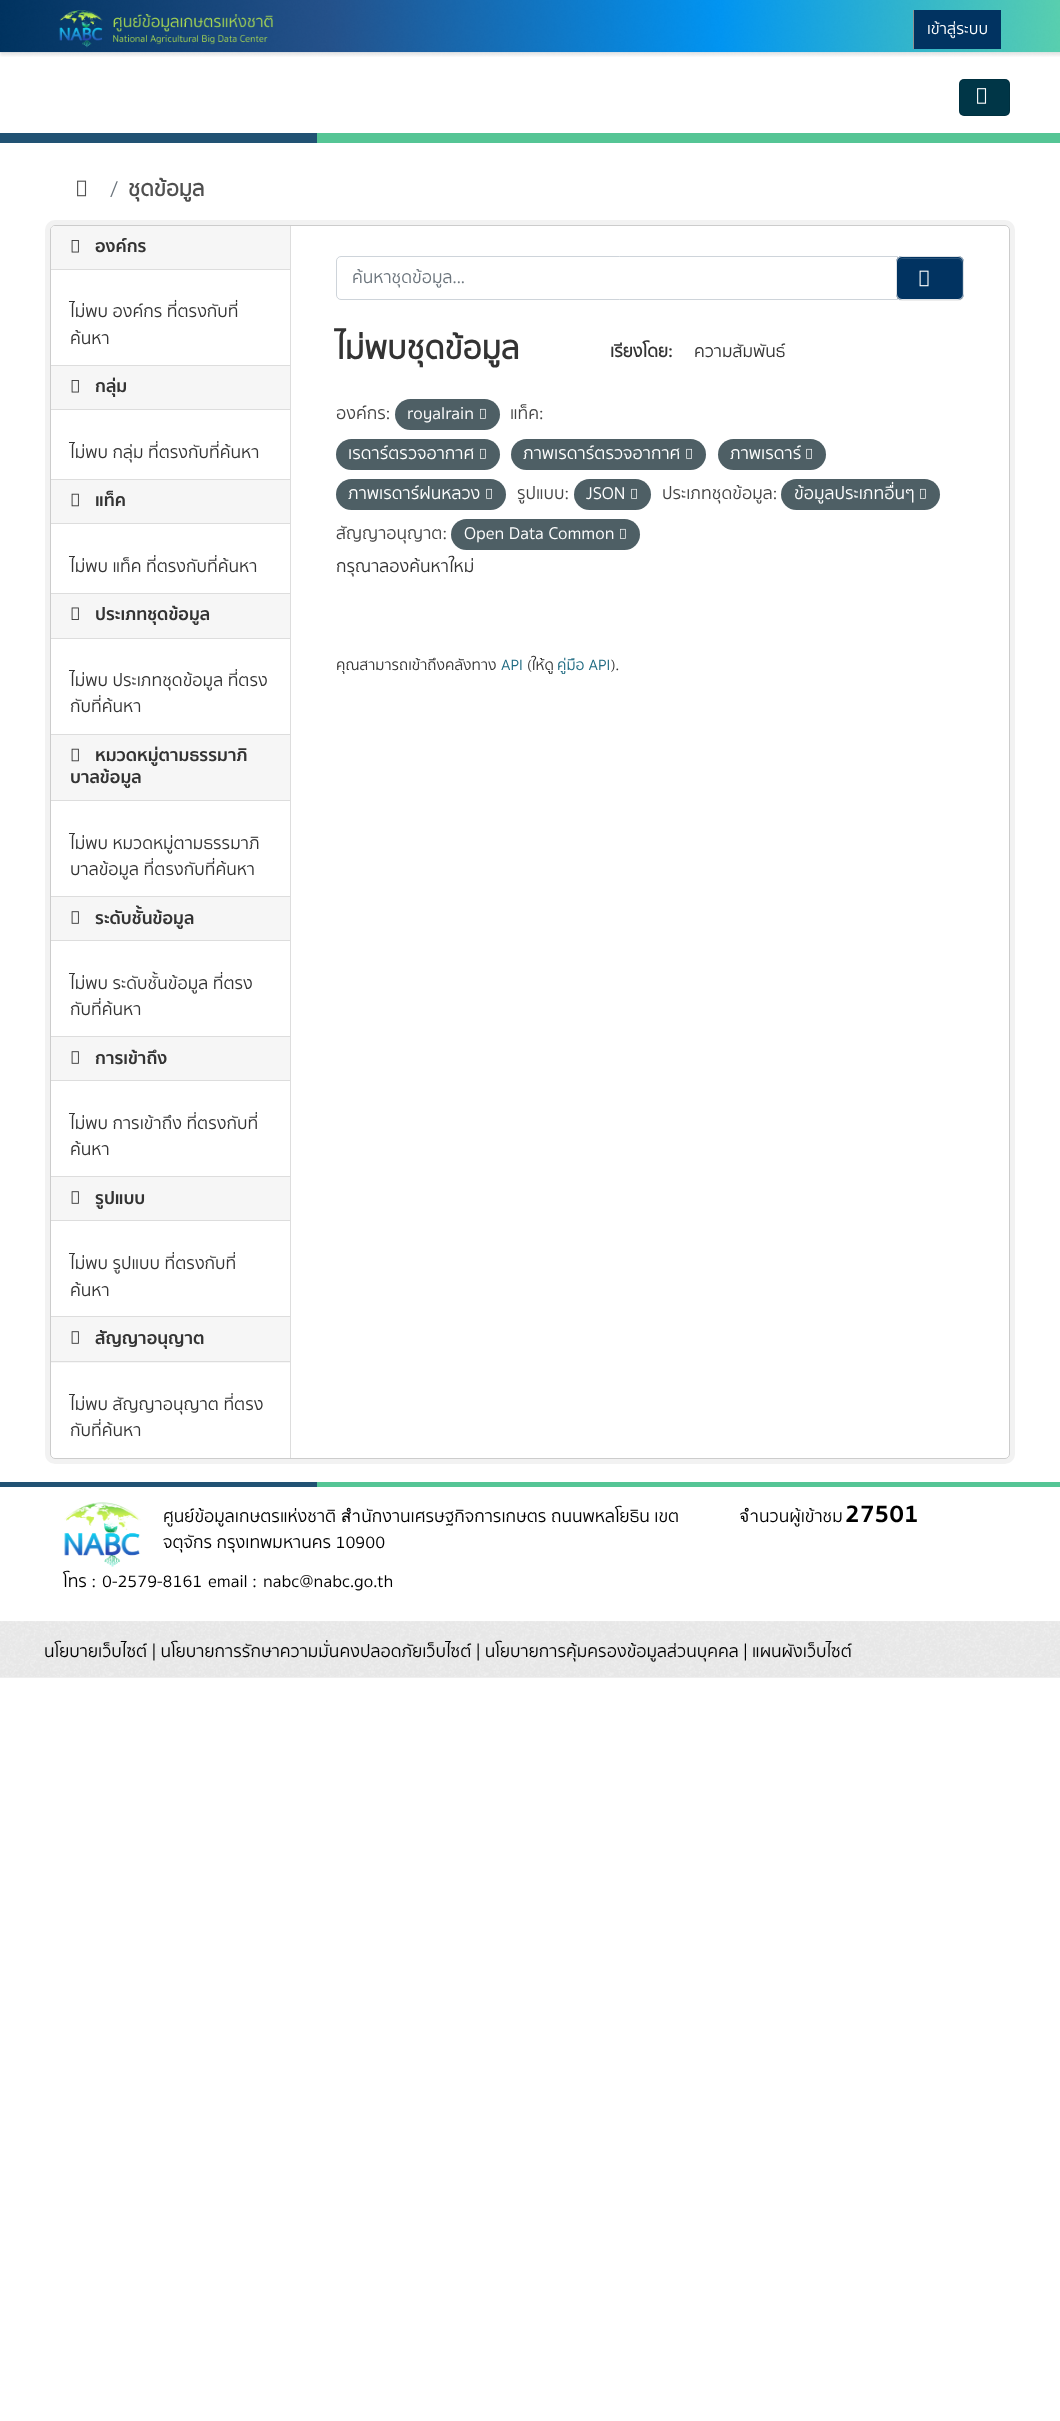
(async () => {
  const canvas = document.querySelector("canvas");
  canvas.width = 1060;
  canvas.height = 2421;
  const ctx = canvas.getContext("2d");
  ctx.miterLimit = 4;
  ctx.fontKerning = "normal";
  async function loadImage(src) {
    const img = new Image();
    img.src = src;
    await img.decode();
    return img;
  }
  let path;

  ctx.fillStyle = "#ffffff";
  ctx.fillRect(0, 0, 1060, 2421);
  ctx.drawImage(await loadImage("img/1.png"), 0, 0, 1060, 57);
  ctx.drawImage(await loadImage("img/2.png"), 59, 10, 214, 38);
  ctx.fillStyle = "#013361";
  ctx.fillRect(914, 10, 87, 39);
  ctx.fillStyle = "#919190";
  ctx.fillRect(913, 10, 1, 39);
  ctx.fillStyle = "#003647";
  ctx.beginPath();
  ctx.roundRect(959, 79, 51, 37, 5);
  ctx.fill();
  ctx.beginPath();
  ctx.roundRect(959.5, 79.5, 50, 36, 4.5);
  ctx.strokeStyle = "rgba(0, 0, 0, 0.1)";
  ctx.stroke();
  ctx.drawImage(await loadImage("img/3.png"), 977, 88, 10, 16);
  ctx.fillStyle = "#215273";
  ctx.fillRect(0, 133, 317, 10);
  ctx.fillStyle = "#55c595";
  ctx.fillRect(317, 133, 743, 10);
  ctx.drawImage(await loadImage("img/4.png"), 77, 180, 10, 17);
  ctx.beginPath();
  ctx.roundRect(47.5, 222.5, 965, 1239, 7.5);
  ctx.strokeStyle = "#f2f2f2";
  ctx.lineWidth = 5;
  ctx.stroke();
  ctx.fillStyle = "#ffffff";
  ctx.beginPath();
  ctx.roundRect(50.5, 225.5, 959, 1233, 4.5);
  ctx.fill();
  ctx.strokeStyle = "#cccccc";
  ctx.lineWidth = 1;
  ctx.stroke();
  ctx.fillStyle = "#f6f6f6";
  ctx.beginPath();
  ctx.roundRect(51, 226, 239, 44, [4, 0, 0, 0]);
  ctx.fill();
  ctx.fillStyle = "#dddddd";
  ctx.fillRect(51, 269, 239, 1);
  ctx.drawImage(await loadImage("img/5.png"), 71, 240, 8, 13);
  for (const [x, y, w, h, color] of [
    [51, 366, 239, 43, "#f6f6f6"],
    [51, 365, 239, 1, "#dddddd"],
    [51, 409, 239, 1, "#dddddd"],
  ]) {
    ctx.fillStyle = color;
    ctx.fillRect(x, y, w, h);
  }
  ctx.drawImage(await loadImage("img/5.png"), 71, 380, 8, 13);
  for (const [x, y, w, h, color] of [
    [51, 480, 239, 43, "#f6f6f6"],
    [51, 479, 239, 1, "#dddddd"],
    [51, 523, 239, 1, "#dddddd"],
  ]) {
    ctx.fillStyle = color;
    ctx.fillRect(x, y, w, h);
  }
  ctx.drawImage(await loadImage("img/6.png"), 71, 493, 8, 14);
  for (const [x, y, w, h, color] of [
    [51, 594, 239, 44, "#f6f6f6"],
    [51, 593, 239, 1, "#dddddd"],
    [51, 638, 239, 1, "#dddddd"],
  ]) {
    ctx.fillStyle = color;
    ctx.fillRect(x, y, w, h);
  }
  ctx.drawImage(await loadImage("img/7.png"), 71, 607, 8, 13);
  for (const [x, y, w, h, color] of [
    [51, 735, 239, 65, "#f6f6f6"],
    [51, 734, 239, 1, "#dddddd"],
    [51, 800, 239, 1, "#dddddd"],
  ]) {
    ctx.fillStyle = color;
    ctx.fillRect(x, y, w, h);
  }
  ctx.drawImage(await loadImage("img/6.png"), 71, 748, 8, 14);
  for (const [x, y, w, h, color] of [
    [51, 897, 239, 43, "#f6f6f6"],
    [51, 896, 239, 1, "#dddddd"],
    [51, 940, 239, 1, "#dddddd"],
  ]) {
    ctx.fillStyle = color;
    ctx.fillRect(x, y, w, h);
  }
  ctx.drawImage(await loadImage("img/8.png"), 71, 911, 8, 13);
  for (const [x, y, w, h, color] of [
    [51, 1037, 239, 43, "#f6f6f6"],
    [51, 1036, 239, 1, "#dddddd"],
    [51, 1080, 239, 1, "#dddddd"],
  ]) {
    ctx.fillStyle = color;
    ctx.fillRect(x, y, w, h);
  }
  ctx.drawImage(await loadImage("img/8.png"), 71, 1051, 8, 13);
  for (const [x, y, w, h, color] of [
    [51, 1177, 239, 43, "#f6f6f6"],
    [51, 1176, 239, 1, "#dddddd"],
    [51, 1220, 239, 1, "#dddddd"],
  ]) {
    ctx.fillStyle = color;
    ctx.fillRect(x, y, w, h);
  }
  ctx.drawImage(await loadImage("img/8.png"), 71, 1191, 8, 13);
  for (const [x, y, w, h, color] of [
    [51, 1317, 239, 46, "#f6f6f6"],
    [51, 1316, 239, 1, "#dddddd"],
    [51, 1361, 239, 1, "#dddddd"],
  ]) {
    ctx.fillStyle = color;
    ctx.fillRect(x, y, w, h);
  }
  ctx.drawImage(await loadImage("img/8.png"), 71, 1331, 8, 13);
  ctx.fillRect(290, 226, 1, 1232);
  ctx.beginPath();
  ctx.roundRect(336.5, 256.5, 561, 43, [4.5, 0, 0, 4.5]);
  ctx.strokeStyle = "#ced4da";
  ctx.stroke();
  ctx.fillStyle = "rgba(0, 0, 0, 0.07)";
  ctx.filter = "blur(0.5px)";
  ctx.beginPath();
  ctx.roundRect(896, 258, 68, 43, 6);
  ctx.fill();
  ctx.filter = "none";
  ctx.fillStyle = "#013361";
  ctx.beginPath();
  ctx.roundRect(896, 256, 68, 44, 6);
  ctx.fill();
  ctx.fillStyle = "#275279";
  path = new Path2D("M902 259H958C960 259 962 261 962 264V295L961 298C964 295 963 292 963 289V278C963 254 966 258 940 258H912C906 258 898 256 898 264C898 261 900 259 902 259Z");
  ctx.fill(path);
  ctx.beginPath();
  ctx.roundRect(896.5, 256.5, 67, 43, 5.5);
  ctx.strokeStyle = "#dee2e6";
  ctx.stroke();
  ctx.drawImage(await loadImage("img/9.png"), 919, 270, 10, 17);
  ctx.fillStyle = "#4e5f65";
  ctx.beginPath();
  ctx.roundRect(395, 399, 105, 31, 15.5);
  ctx.fill();
  ctx.drawImage(await loadImage("img/10.png"), 480, 408, 6, 11);
  ctx.beginPath();
  ctx.roundRect(336, 439, 164, 31, 15.5);
  ctx.fill();
  ctx.drawImage(await loadImage("img/10.png"), 480, 448, 6, 11);
  ctx.beginPath();
  ctx.roundRect(511, 439, 195, 31, 15.5);
  ctx.fill();
  ctx.drawImage(await loadImage("img/11.png"), 686, 448, 6, 11);
  ctx.beginPath();
  ctx.roundRect(718, 439, 108, 31, 15.5);
  ctx.fill();
  ctx.drawImage(await loadImage("img/11.png"), 806, 448, 6, 11);
  ctx.beginPath();
  ctx.roundRect(336, 479, 170, 31, 15.5);
  ctx.fill();
  ctx.drawImage(await loadImage("img/11.png"), 486, 488, 6, 11);
  ctx.beginPath();
  ctx.roundRect(574, 479, 77, 31, 15.5);
  ctx.fill();
  ctx.drawImage(await loadImage("img/11.png"), 631, 488, 6, 11);
  ctx.beginPath();
  ctx.roundRect(781, 479, 159, 31, 15.5);
  ctx.fill();
  ctx.drawImage(await loadImage("img/10.png"), 920, 488, 6, 11);
  ctx.beginPath();
  ctx.roundRect(451, 519, 189, 31, 15.5);
  ctx.fill();
  ctx.drawImage(await loadImage("img/10.png"), 620, 528, 6, 11);
  ctx.fillStyle = "#215273";
  ctx.fillRect(0, 1482, 318, 5);
  ctx.fillStyle = "#55c595";
  ctx.fillRect(317, 1482, 743, 5);
  ctx.drawImage(await loadImage("img/12.png"), 64, 1502, 77, 65);
  ctx.fillStyle = "#efefef";
  ctx.fillRect(0, 1621, 1060, 57);
  ctx.drawImage(await loadImage("img/13.png"), 0, 1621, 1060, 56);
  ctx.font = "16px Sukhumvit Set";
  ctx.fillStyle = "#ffffff";
  ctx.fillText("เข้าสู่ระบบ", 927, 34);
  ctx.font = "22px Sukhumvit Set";
  ctx.fillStyle = "#6c757d";
  ctx.fillText("/", 110, 196);
  ctx.font = "bold 22px 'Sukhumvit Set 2'";
  ctx.fillStyle = "#505050";
  ctx.fillText("ชุดข้อมูล", 128, 196);
  ctx.font = "bold 17.5px Sukhumvit Set";
  ctx.fillStyle = "#333333";
  ctx.fillText("องค์กร", 95, 252);
  ctx.font = "17.5px Sukhumvit Set";
  ctx.fillText("ไม่พบ องค์กร ที่ตรงกับที่", 70, 317);
  ctx.fillText("ค้นหา", 70, 344);
  ctx.font = "bold 17.5px Sukhumvit Set";
  ctx.fillText("กลุ่ม", 95, 392);
  ctx.font = "17.5px Sukhumvit Set";
  ctx.fillText("ไม่พบ กลุ่ม ที่ตรงกับที่ค้นหา", 70, 458);
  ctx.font = "bold 17.5px Sukhumvit Set";
  ctx.fillText("แท็ค", 95, 506);
  ctx.font = "17.5px Sukhumvit Set";
  ctx.fillText("ไม่พบ แท็ค ที่ตรงกับที่ค้นหา", 70, 572);
  ctx.font = "bold 17.5px Sukhumvit Set";
  ctx.fillText("ประเภทชุดข้อมูล", 95, 620);
  ctx.font = "17.5px Sukhumvit Set";
  ctx.fillText("ไม่พบ ประเภทชุดข้อมูล ที่ตรง", 70, 686);
  ctx.fillText("กับที่ค้นหา", 70, 712);
  ctx.font = "bold 17.5px Sukhumvit Set";
  ctx.fillText("หมวดหมู่ตามธรรมาภิ", 95, 761);
  ctx.fillText("บาลข้อมูล", 70, 783);
  ctx.font = "17.5px Sukhumvit Set";
  ctx.fillText("ไม่พบ หมวดหมู่ตามธรรมาภิ", 70, 849);
  ctx.fillText("บาลข้อมูล ที่ตรงกับที่ค้นหา", 70, 875);
  ctx.font = "bold 17.5px Sukhumvit Set";
  ctx.fillText("ระดับชั้นข้อมูล", 95, 924);
  ctx.font = "17.5px Sukhumvit Set";
  ctx.fillText("ไม่พบ ระดับชั้นข้อมูล ที่ตรง", 70, 989);
  ctx.fillText("กับที่ค้นหา", 70, 1015);
  ctx.font = "bold 17.5px Sukhumvit Set";
  ctx.fillText("การเข้าถึง", 95, 1064);
  ctx.font = "17.5px Sukhumvit Set";
  ctx.fillText("ไม่พบ การเข้าถึง ที่ตรงกับที่", 70, 1129);
  ctx.fillText("ค้นหา", 70, 1155);
  ctx.font = "bold 17.5px Sukhumvit Set";
  ctx.fillText("รูปแบบ", 95, 1204);
  ctx.font = "17.5px Sukhumvit Set";
  ctx.fillText("ไม่พบ รูปแบบ ที่ตรงกับที่", 70, 1269);
  ctx.fillText("ค้นหา", 70, 1296);
  ctx.font = "bold 17.5px Sukhumvit Set";
  ctx.fillText("สัญญาอนุญาต", 95, 1344);
  ctx.font = "17.5px Sukhumvit Set";
  ctx.fillText("ไม่พบ สัญญาอนุญาต ที่ตรง", 70, 1410);
  ctx.fillText("กับที่ค้นหา", 70, 1436);
  ctx.save();
  ctx.beginPath();
  ctx.rect(353, 265, 528, 25);
  ctx.clip();
  ctx.fillStyle = "#6c757d";
  ctx.fillText("ค้นหาชุดข้อมูล...", 352, 283);
  ctx.restore();
  ctx.font = "bold 32.5px 'Sukhumvit Set 2'";
  ctx.fillText("ไม่พบชุดข้อมูล", 336, 359);
  ctx.font = "bold 17.5px 'Sukhumvit Set 2'";
  ctx.fillText("เรียงโดย:", 610, 357);
  ctx.font = "17.5px Sukhumvit Set";
  ctx.fillText("ความสัมพันธ์", 694, 357);
  ctx.fillStyle = "#444444";
  ctx.fillText("องค์กร:", 336, 419);
  ctx.fillStyle = "#ffffff";
  ctx.fillText("royalrain", 407, 419);
  ctx.fillStyle = "#444444";
  ctx.fillText("แท็ค:", 510, 419);
  ctx.fillStyle = "#ffffff";
  for (const [text, x, y] of [
    ["เรดาร์ตรวจอากาศ", 348, 459],
    ["ภาพเรดาร์ตรวจอากาศ", 523, 459],
    ["ภาพเรดาร์", 730, 459],
    ["ภาพเรดาร์ฝนหลวง", 348, 499],
  ]) {
    ctx.fillText(text, x, y);
  }
  ctx.fillStyle = "#444444";
  ctx.fillText("รูปแบบ:", 517, 499);
  ctx.fillStyle = "#ffffff";
  ctx.fillText("JSON", 586, 499);
  ctx.fillStyle = "#444444";
  ctx.fillText("ประเภทชุดข้อมูล:", 662, 499);
  ctx.fillStyle = "#ffffff";
  ctx.fillText("ข้อมูลประเภทอื่นๆ", 794, 499);
  ctx.fillStyle = "#444444";
  ctx.fillText("สัญญาอนุญาต:", 336, 539);
  ctx.fillStyle = "#ffffff";
  ctx.fillText("Open Data Common", 464, 539);
  ctx.fillStyle = "#333333";
  ctx.fillText("กรุณาลองค้นหาใหม่", 336, 572);
  ctx.font = "15.25px Sukhumvit Set";
  ctx.fillText("คุณสามารถเข้าถึงคลังทาง", 336, 670);
  ctx.fillStyle = "#206b82";
  ctx.fillText("API", 501, 670);
  ctx.fillStyle = "#333333";
  ctx.fillText("(ให้ดู", 527, 670);
  ctx.fillStyle = "#206b82";
  ctx.fillText("คู่มือ API", 557, 670);
  ctx.fillStyle = "#333333";
  ctx.fillText(").", 611, 670);
  ctx.font = "17.5px Sukhumvit Set";
  ctx.fillStyle = "#000000";
  for (const [text, x, y] of [
    ["ศูนย์ข้อมูลเกษตรแห่งชาติ สำนักงานเศรษฐกิจการเกษตร ถนนพหลโยธิน เขต", 163, 1522],
    ["จตุจักร กรุงเทพมหานคร 10900", 163, 1548],
    ["โทร :", 63, 1587],
    ["0-2579-8161", 102, 1587],
    ["email :", 208, 1587],
    ["nabc@nabc.go.th", 263, 1587],
    ["จำนวนผู้เข้าชม", 739, 1522],
  ]) {
    ctx.fillText(text, x, y);
  }
  ctx.font = "bold 25px Sukhumvit Set";
  ctx.fillText("27501", 845, 1522);
  ctx.font = "17.5px Sukhumvit Set";
  ctx.fillText("นโยบายเว็บไซต์ | นโยบายการรักษาความมั่นคงปลอดภัยเว็บไซต์ | นโยบายการคุ้มครองข้อมูลส่วนบุคคล | แผนผังเว็บไซต์", 44, 1657);
})();
